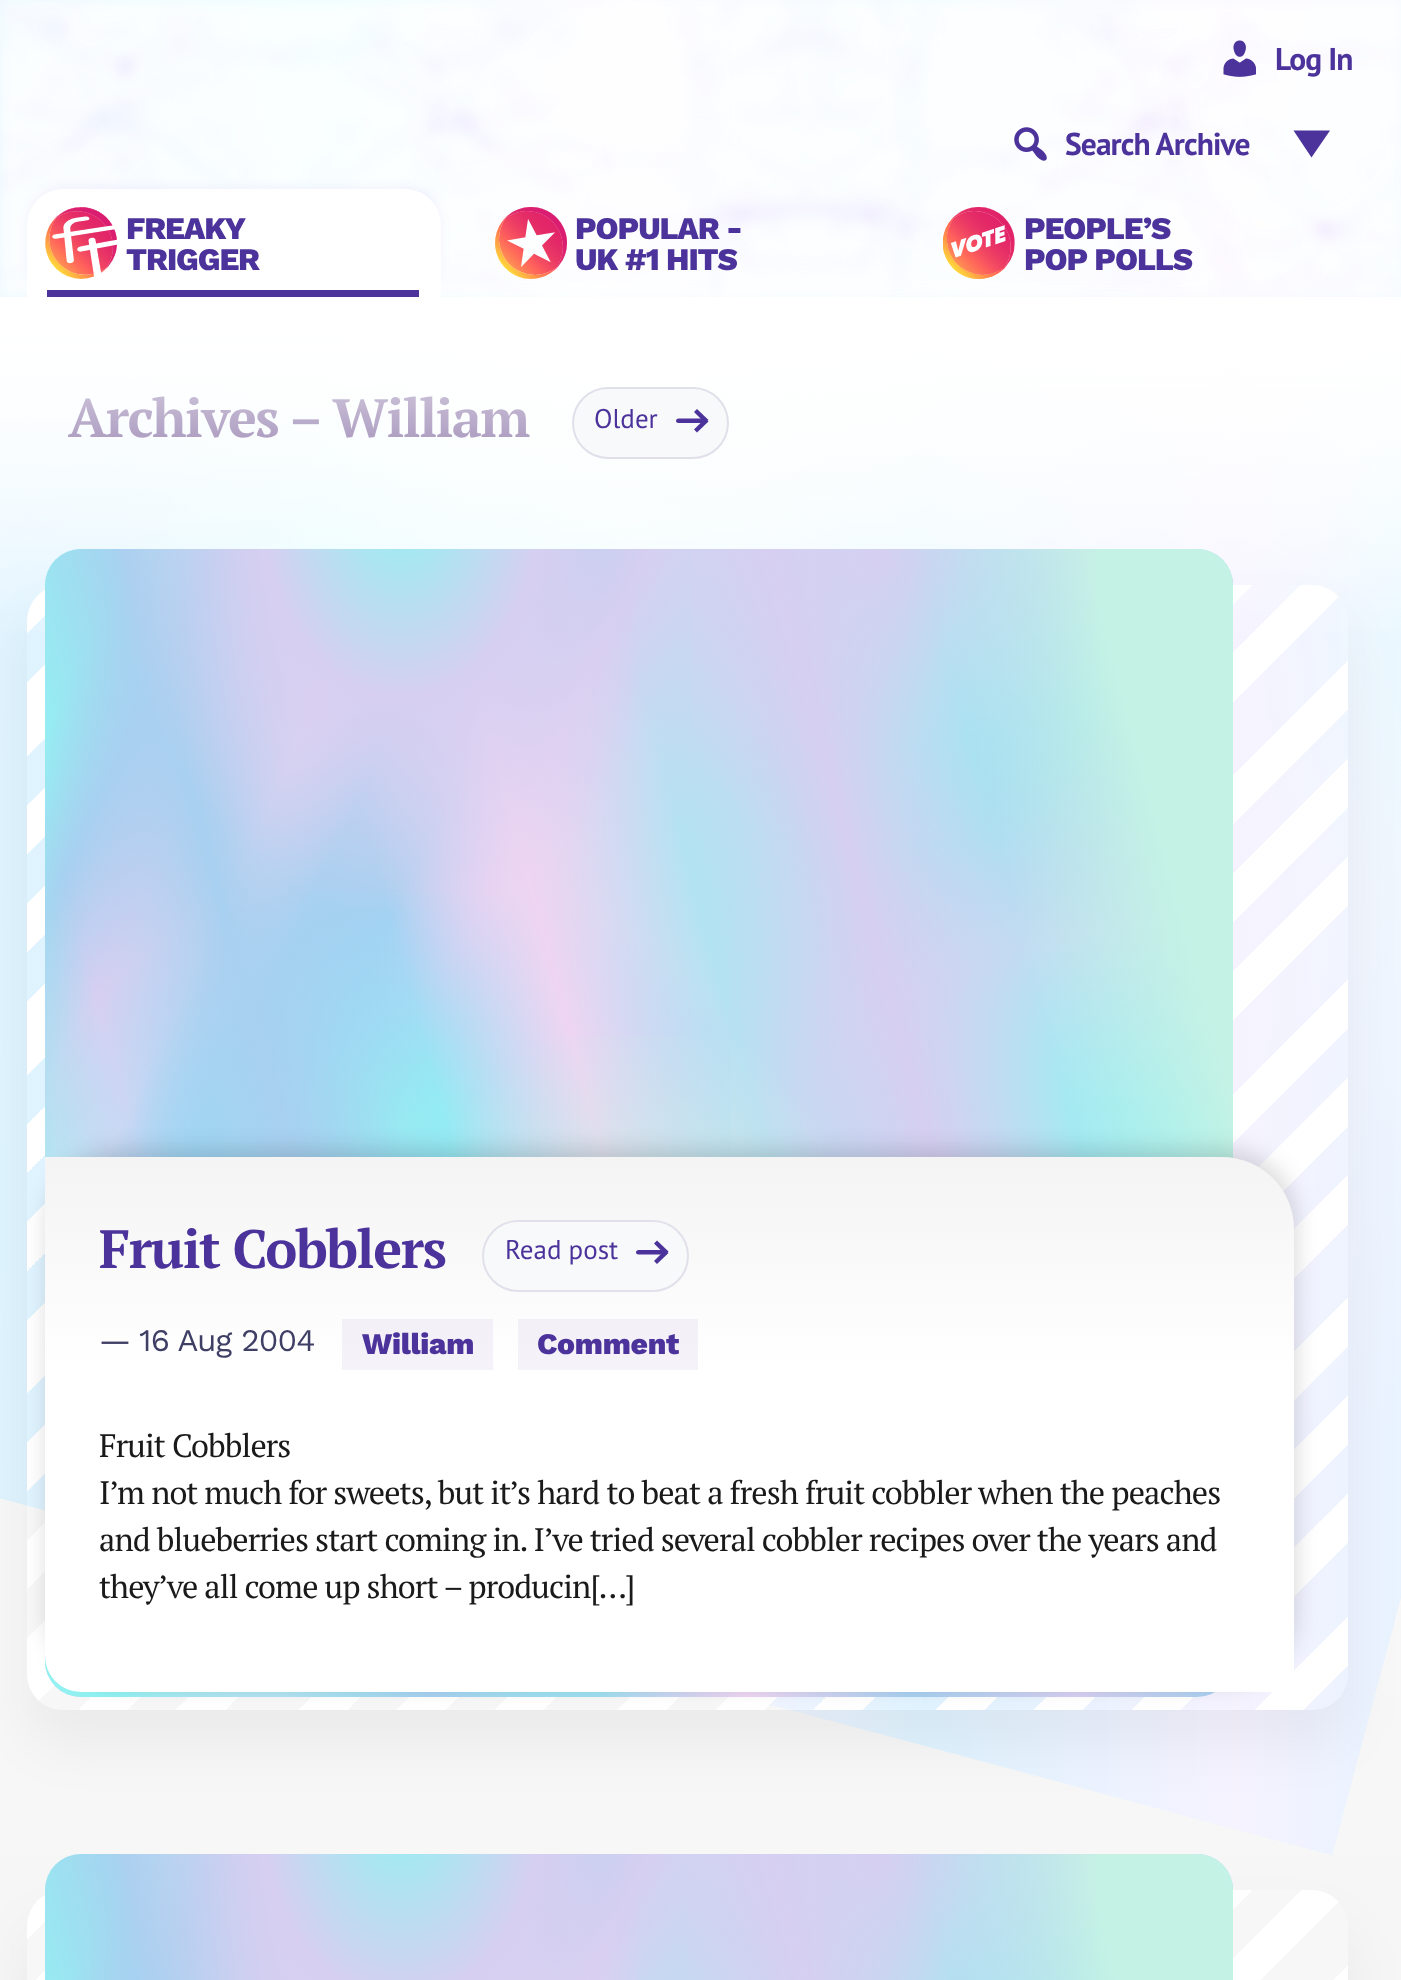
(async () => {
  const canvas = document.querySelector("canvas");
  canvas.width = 1401;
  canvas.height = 1980;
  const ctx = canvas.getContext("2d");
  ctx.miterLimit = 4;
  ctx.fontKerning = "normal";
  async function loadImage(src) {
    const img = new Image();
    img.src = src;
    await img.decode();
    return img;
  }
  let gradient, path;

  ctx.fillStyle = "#eeeeee";
  ctx.fillRect(0, 0, 1401, 1980);
  gradient = ctx.createLinearGradient(-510, -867, 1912, 1164);
  gradient.addColorStop(0.05, "#a1ffff");
  gradient.addColorStop(0.1, "#b9e5ff");
  gradient.addColorStop(0.15, "#ebe4ff");
  gradient.addColorStop(0.2, "#ffeaff");
  gradient.addColorStop(0.25, "#b9e5ff");
  gradient.addColorStop(0.3, "#b9e5ff");
  gradient.addColorStop(0.35, "#ebe4ff");
  gradient.addColorStop(0.4, "#d5f2ff");
  gradient.addColorStop(0.55, "#a1ffff");
  gradient.addColorStop(0.7, "#b9e5ff");
  ctx.fillStyle = gradient;
  path = new Path2D("M70-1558L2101-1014L1332 1855L-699 1311Z");
  ctx.fill(path);
  gradient = ctx.createRadialGradient(1716, 596.22, 0, 1716, 596.22, 2974);
  gradient.addColorStop(0, "#a1ffff");
  gradient.addColorStop(0.25, "#d5f2ff");
  gradient.addColorStop(0.5, "rgba(213, 242, 255, 0)");
  ctx.fillStyle = gradient;
  path = new Path2D("M70-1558L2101-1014L1332 1855L-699 1311Z");
  ctx.save();
  ctx.clip(path);
  ctx.scale(1, 2100 / 2974);
  ctx.fillRect(0, 0, 1401, 2805);
  ctx.restore();
  gradient = ctx.createRadialGradient(295, 39.64, 0, 295, 39.64, 2081);
  gradient.addColorStop(0, "#acccff");
  gradient.addColorStop(0.3, "rgba(172, 204, 255, 0)");
  ctx.fillStyle = gradient;
  path = new Path2D("M70-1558L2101-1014L1332 1855L-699 1311Z");
  ctx.save();
  ctx.clip(path);
  ctx.scale(1, 2100 / 2081);
  ctx.fillRect(0, 0, 1401, 1963);
  ctx.restore();
  gradient = ctx.createRadialGradient(295, 39.64, 0, 295, 39.64, 2081);
  gradient.addColorStop(0, "#a1ffff");
  gradient.addColorStop(0.3, "rgba(161, 255, 255, 0)");
  ctx.fillStyle = gradient;
  path = new Path2D("M70-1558L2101-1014L1332 1855L-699 1311Z");
  ctx.save();
  ctx.clip(path);
  ctx.scale(1, 2100 / 2081);
  ctx.fillRect(0, 0, 1401, 1963);
  ctx.restore();
  gradient = ctx.createLinearGradient(-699, 149, 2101, 148);
  gradient.addColorStop(0.05, "#a1ffff");
  gradient.addColorStop(0.16, "rgba(161, 255, 255, 0)");
  gradient.addColorStop(0.16, "rgba(185, 229, 255, 0)");
  gradient.addColorStop(0.26, "#b9e5ff");
  gradient.addColorStop(0.37, "rgba(185, 229, 255, 0)");
  gradient.addColorStop(0.37, "rgba(255, 234, 255, 0)");
  gradient.addColorStop(0.47, "#ffeaff");
  gradient.addColorStop(0.58, "rgba(255, 234, 255, 0)");
  gradient.addColorStop(0.58, "rgba(235, 228, 255, 0)");
  gradient.addColorStop(0.69, "#ebe4ff");
  gradient.addColorStop(0.79, "rgba(235, 228, 255, 0)");
  gradient.addColorStop(0.79, "rgba(216, 255, 252, 0)");
  gradient.addColorStop(0.9, "#d8fffc");
  ctx.fillStyle = gradient;
  path = new Path2D("M70-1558L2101-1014L1332 1855L-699 1311Z");
  ctx.fill(path);
  gradient = ctx.createRadialGradient(547, 365.17, 0, 547, 365.17, 1487);
  gradient.addColorStop(0, "#d8fffc");
  gradient.addColorStop(0.3, "rgba(216, 255, 252, 0)");
  ctx.fillStyle = gradient;
  path = new Path2D("M70-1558L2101-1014L1332 1855L-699 1311Z");
  ctx.save();
  ctx.clip(path);
  ctx.scale(1, 2940 / 1487);
  ctx.fillRect(0, 0, 1401, 1002);
  ctx.restore();
  ctx.fillStyle = "rgba(255, 255, 255, 0.75)";
  ctx.fillRect(0, 0, 1401, 297);
  ctx.drawImage(await loadImage("img/1.png"), 0, 0, 1401, 297);
  ctx.drawImage(await loadImage("img/2.png"), 1223, 40, 33, 37);
  ctx.drawImage(await loadImage("img/3.png"), 1014, 127, 33, 34);
  ctx.fillStyle = "#4b339b";
  path = new Path2D("M1330 130.5L1311.5 157.5L1293.5 130.5Z");
  ctx.fill(path);
  ctx.drawImage(await loadImage("img/5.png"), 495, 207, 72, 72);
  ctx.drawImage(await loadImage("img/6.png"), 943, 207, 72, 72);
  gradient = ctx.createLinearGradient(701, 297, 701, 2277);
  gradient.addColorStop(0.01, "#ffffff");
  gradient.addColorStop(0.16, "rgba(255, 255, 255, 0.1)");
  gradient.addColorStop(0.9, "rgba(255, 255, 255, 0.1)");
  ctx.fillStyle = gradient;
  ctx.fillRect(0, 299, 1401, 1556);
  gradient = ctx.createLinearGradient(701, 297, 701, 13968);
  gradient.addColorStop(0.1, "rgba(255, 255, 255, 0.5)");
  gradient.addColorStop(0.4, "rgba(255, 255, 255, 0.25)");
  ctx.fillStyle = gradient;
  ctx.fillRect(0, 341, 1401, 1639);
  ctx.fillStyle = "rgba(0, 0, 0, 0.05)";
  ctx.filter = "blur(28px)";
  ctx.beginPath();
  ctx.roundRect(27, 1924, 1321, 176, 36);
  ctx.fill();
  ctx.filter = "none";
  gradient = ctx.createLinearGradient(76, 1841, 1301, 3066);
  gradient.addColorStop(0, "#ffffff");
  gradient.addColorStop(0.01, "#ffffff");
  gradient.addColorStop(0.01, "#f7f7f7");
  gradient.addColorStop(0.01, "#ffffff");
  gradient.addColorStop(0.02, "#ffffff");
  gradient.addColorStop(0.02, "#f7f7f7");
  gradient.addColorStop(0.03, "#f7f7f7");
  gradient.addColorStop(0.03, "#ffffff");
  gradient.addColorStop(0.03, "#f7f7f7");
  gradient.addColorStop(0.04, "#f7f7f7");
  gradient.addColorStop(0.04, "#ffffff");
  gradient.addColorStop(0.05, "#ffffff");
  gradient.addColorStop(0.05, "#f7f7f7");
  gradient.addColorStop(0.05, "#ffffff");
  gradient.addColorStop(0.06, "#ffffff");
  gradient.addColorStop(0.06, "#f7f7f7");
  gradient.addColorStop(0.06, "#ffffff");
  gradient.addColorStop(0.07, "#ffffff");
  gradient.addColorStop(0.07, "#f7f7f7");
  gradient.addColorStop(0.08, "#f7f7f7");
  gradient.addColorStop(0.08, "#ffffff");
  gradient.addColorStop(0.08, "#f7f7f7");
  gradient.addColorStop(0.09, "#f7f7f7");
  gradient.addColorStop(0.09, "#ffffff");
  gradient.addColorStop(0.1, "#ffffff");
  gradient.addColorStop(0.1, "#f7f7f7");
  gradient.addColorStop(0.1, "#ffffff");
  gradient.addColorStop(0.11, "#ffffff");
  gradient.addColorStop(0.11, "#f7f7f7");
  gradient.addColorStop(0.12, "#f7f7f7");
  gradient.addColorStop(0.12, "#ffffff");
  gradient.addColorStop(0.12, "#f7f7f7");
  gradient.addColorStop(0.13, "#f7f7f7");
  gradient.addColorStop(0.13, "#ffffff");
  gradient.addColorStop(0.14, "#ffffff");
  gradient.addColorStop(0.14, "#f7f7f7");
  gradient.addColorStop(0.14, "#ffffff");
  gradient.addColorStop(0.15, "#ffffff");
  gradient.addColorStop(0.15, "#f7f7f7");
  gradient.addColorStop(0.16, "#f7f7f7");
  gradient.addColorStop(0.16, "#ffffff");
  gradient.addColorStop(0.16, "#f7f7f7");
  gradient.addColorStop(0.17, "#f7f7f7");
  gradient.addColorStop(0.17, "#ffffff");
  gradient.addColorStop(0.18, "#ffffff");
  gradient.addColorStop(0.18, "#f7f7f7");
  gradient.addColorStop(0.18, "#ffffff");
  gradient.addColorStop(0.19, "#ffffff");
  gradient.addColorStop(0.19, "#f7f7f7");
  gradient.addColorStop(0.19, "#ffffff");
  gradient.addColorStop(0.2, "#ffffff");
  gradient.addColorStop(0.2, "#f7f7f7");
  gradient.addColorStop(0.21, "#f7f7f7");
  gradient.addColorStop(0.21, "#ffffff");
  gradient.addColorStop(0.21, "#f7f7f7");
  gradient.addColorStop(0.22, "#f7f7f7");
  gradient.addColorStop(0.22, "#ffffff");
  gradient.addColorStop(0.23, "#ffffff");
  gradient.addColorStop(0.23, "#f7f7f7");
  gradient.addColorStop(0.23, "#ffffff");
  gradient.addColorStop(0.24, "#ffffff");
  gradient.addColorStop(0.24, "#f7f7f7");
  gradient.addColorStop(0.25, "#f7f7f7");
  gradient.addColorStop(0.25, "#ffffff");
  gradient.addColorStop(0.25, "#f7f7f7");
  gradient.addColorStop(0.26, "#f7f7f7");
  gradient.addColorStop(0.26, "#ffffff");
  gradient.addColorStop(0.27, "#ffffff");
  gradient.addColorStop(0.27, "#f7f7f7");
  gradient.addColorStop(0.27, "#ffffff");
  gradient.addColorStop(0.28, "#ffffff");
  gradient.addColorStop(0.28, "#f7f7f7");
  gradient.addColorStop(0.29, "#f7f7f7");
  gradient.addColorStop(0.29, "#ffffff");
  gradient.addColorStop(0.29, "#f7f7f7");
  gradient.addColorStop(0.3, "#f7f7f7");
  gradient.addColorStop(0.3, "#ffffff");
  gradient.addColorStop(0.31, "#ffffff");
  gradient.addColorStop(0.31, "#f7f7f7");
  gradient.addColorStop(0.31, "#ffffff");
  gradient.addColorStop(0.32, "#ffffff");
  gradient.addColorStop(0.32, "#f7f7f7");
  gradient.addColorStop(0.32, "#ffffff");
  gradient.addColorStop(0.33, "#ffffff");
  gradient.addColorStop(0.33, "#f7f7f7");
  gradient.addColorStop(0.34, "#f7f7f7");
  gradient.addColorStop(0.34, "#ffffff");
  gradient.addColorStop(0.34, "#f7f7f7");
  gradient.addColorStop(0.35, "#f7f7f7");
  gradient.addColorStop(0.35, "#ffffff");
  gradient.addColorStop(0.36, "#ffffff");
  gradient.addColorStop(0.36, "#f7f7f7");
  gradient.addColorStop(0.36, "#ffffff");
  gradient.addColorStop(0.37, "#ffffff");
  gradient.addColorStop(0.37, "#f7f7f7");
  gradient.addColorStop(0.38, "#f7f7f7");
  gradient.addColorStop(0.38, "#ffffff");
  gradient.addColorStop(0.38, "#f7f7f7");
  gradient.addColorStop(0.39, "#f7f7f7");
  gradient.addColorStop(0.39, "#ffffff");
  gradient.addColorStop(0.4, "#ffffff");
  gradient.addColorStop(0.4, "#f7f7f7");
  gradient.addColorStop(0.4, "#ffffff");
  gradient.addColorStop(0.41, "#ffffff");
  gradient.addColorStop(0.41, "#f7f7f7");
  gradient.addColorStop(0.42, "#f7f7f7");
  gradient.addColorStop(0.42, "#ffffff");
  gradient.addColorStop(0.42, "#f7f7f7");
  gradient.addColorStop(0.43, "#f7f7f7");
  gradient.addColorStop(0.43, "#ffffff");
  gradient.addColorStop(0.44, "#ffffff");
  gradient.addColorStop(0.44, "#f7f7f7");
  gradient.addColorStop(0.44, "#ffffff");
  gradient.addColorStop(0.45, "#ffffff");
  gradient.addColorStop(0.45, "#f7f7f7");
  gradient.addColorStop(0.45, "#ffffff");
  gradient.addColorStop(0.46, "#ffffff");
  gradient.addColorStop(0.46, "#f7f7f7");
  gradient.addColorStop(0.47, "#f7f7f7");
  gradient.addColorStop(0.47, "#ffffff");
  gradient.addColorStop(0.47, "#f7f7f7");
  gradient.addColorStop(0.48, "#f7f7f7");
  gradient.addColorStop(0.48, "#ffffff");
  gradient.addColorStop(0.49, "#ffffff");
  gradient.addColorStop(0.49, "#f7f7f7");
  gradient.addColorStop(0.49, "#ffffff");
  gradient.addColorStop(0.5, "#ffffff");
  gradient.addColorStop(0.5, "#f7f7f7");
  gradient.addColorStop(0.51, "#f7f7f7");
  gradient.addColorStop(0.51, "#ffffff");
  gradient.addColorStop(0.51, "#f7f7f7");
  gradient.addColorStop(0.52, "#f7f7f7");
  gradient.addColorStop(0.52, "#ffffff");
  gradient.addColorStop(0.53, "#ffffff");
  gradient.addColorStop(0.53, "#f7f7f7");
  gradient.addColorStop(0.53, "#ffffff");
  gradient.addColorStop(0.54, "#ffffff");
  gradient.addColorStop(0.54, "#f7f7f7");
  gradient.addColorStop(0.55, "#f7f7f7");
  gradient.addColorStop(0.55, "#ffffff");
  gradient.addColorStop(0.55, "#f7f7f7");
  gradient.addColorStop(0.56, "#f7f7f7");
  gradient.addColorStop(0.56, "#ffffff");
  gradient.addColorStop(0.56, "#f7f7f7");
  gradient.addColorStop(0.57, "#f7f7f7");
  gradient.addColorStop(0.57, "#ffffff");
  gradient.addColorStop(0.58, "#ffffff");
  gradient.addColorStop(0.58, "#f7f7f7");
  gradient.addColorStop(0.58, "#ffffff");
  gradient.addColorStop(0.59, "#ffffff");
  gradient.addColorStop(0.59, "#f7f7f7");
  gradient.addColorStop(0.6, "#f7f7f7");
  gradient.addColorStop(0.6, "#ffffff");
  gradient.addColorStop(0.6, "#f7f7f7");
  gradient.addColorStop(0.61, "#f7f7f7");
  gradient.addColorStop(0.61, "#ffffff");
  gradient.addColorStop(0.62, "#ffffff");
  gradient.addColorStop(0.62, "#f7f7f7");
  gradient.addColorStop(0.62, "#ffffff");
  gradient.addColorStop(0.63, "#ffffff");
  gradient.addColorStop(0.63, "#f7f7f7");
  gradient.addColorStop(0.64, "#f7f7f7");
  gradient.addColorStop(0.64, "#ffffff");
  gradient.addColorStop(0.64, "#f7f7f7");
  gradient.addColorStop(0.65, "#f7f7f7");
  gradient.addColorStop(0.65, "#ffffff");
  gradient.addColorStop(0.66, "#ffffff");
  gradient.addColorStop(0.66, "#f7f7f7");
  gradient.addColorStop(0.66, "#ffffff");
  gradient.addColorStop(0.67, "#ffffff");
  gradient.addColorStop(0.67, "#f7f7f7");
  gradient.addColorStop(0.68, "#f7f7f7");
  gradient.addColorStop(0.68, "#ffffff");
  gradient.addColorStop(0.68, "#f7f7f7");
  gradient.addColorStop(0.69, "#f7f7f7");
  gradient.addColorStop(0.69, "#ffffff");
  gradient.addColorStop(0.69, "#f7f7f7");
  gradient.addColorStop(0.7, "#f7f7f7");
  gradient.addColorStop(0.7, "#ffffff");
  gradient.addColorStop(0.71, "#ffffff");
  gradient.addColorStop(0.71, "#f7f7f7");
  gradient.addColorStop(0.71, "#ffffff");
  gradient.addColorStop(0.72, "#ffffff");
  gradient.addColorStop(0.72, "#f7f7f7");
  gradient.addColorStop(0.73, "#f7f7f7");
  gradient.addColorStop(0.73, "#ffffff");
  gradient.addColorStop(0.73, "#f7f7f7");
  gradient.addColorStop(0.74, "#f7f7f7");
  gradient.addColorStop(0.74, "#ffffff");
  gradient.addColorStop(0.75, "#ffffff");
  gradient.addColorStop(0.75, "#f7f7f7");
  gradient.addColorStop(0.75, "#ffffff");
  gradient.addColorStop(0.76, "#ffffff");
  gradient.addColorStop(0.76, "#f7f7f7");
  gradient.addColorStop(0.77, "#f7f7f7");
  gradient.addColorStop(0.77, "#ffffff");
  gradient.addColorStop(0.77, "#f7f7f7");
  gradient.addColorStop(0.78, "#f7f7f7");
  gradient.addColorStop(0.78, "#ffffff");
  gradient.addColorStop(0.79, "#ffffff");
  gradient.addColorStop(0.79, "#f7f7f7");
  gradient.addColorStop(0.79, "#ffffff");
  gradient.addColorStop(0.8, "#ffffff");
  gradient.addColorStop(0.8, "#f7f7f7");
  gradient.addColorStop(0.81, "#f7f7f7");
  gradient.addColorStop(0.81, "#ffffff");
  gradient.addColorStop(0.81, "#f7f7f7");
  gradient.addColorStop(0.82, "#f7f7f7");
  gradient.addColorStop(0.82, "#ffffff");
  gradient.addColorStop(0.82, "#f7f7f7");
  gradient.addColorStop(0.83, "#f7f7f7");
  gradient.addColorStop(0.83, "#ffffff");
  gradient.addColorStop(0.84, "#ffffff");
  gradient.addColorStop(0.84, "#f7f7f7");
  gradient.addColorStop(0.84, "#ffffff");
  gradient.addColorStop(0.85, "#ffffff");
  gradient.addColorStop(0.85, "#f7f7f7");
  gradient.addColorStop(0.86, "#f7f7f7");
  gradient.addColorStop(0.86, "#ffffff");
  gradient.addColorStop(0.86, "#f7f7f7");
  gradient.addColorStop(0.87, "#f7f7f7");
  gradient.addColorStop(0.87, "#ffffff");
  gradient.addColorStop(0.88, "#ffffff");
  gradient.addColorStop(0.88, "#f7f7f7");
  gradient.addColorStop(0.88, "#ffffff");
  gradient.addColorStop(0.89, "#ffffff");
  gradient.addColorStop(0.89, "#f7f7f7");
  gradient.addColorStop(0.9, "#f7f7f7");
  gradient.addColorStop(0.9, "#ffffff");
  gradient.addColorStop(0.9, "#f7f7f7");
  gradient.addColorStop(0.91, "#f7f7f7");
  gradient.addColorStop(0.91, "#ffffff");
  gradient.addColorStop(0.92, "#ffffff");
  gradient.addColorStop(0.92, "#f7f7f7");
  gradient.addColorStop(0.92, "#ffffff");
  gradient.addColorStop(0.93, "#ffffff");
  gradient.addColorStop(0.93, "#f7f7f7");
  gradient.addColorStop(0.94, "#f7f7f7");
  gradient.addColorStop(0.94, "#ffffff");
  gradient.addColorStop(0.94, "#f7f7f7");
  gradient.addColorStop(0.95, "#f7f7f7");
  gradient.addColorStop(0.95, "#ffffff");
  gradient.addColorStop(0.95, "#f7f7f7");
  gradient.addColorStop(0.96, "#f7f7f7");
  gradient.addColorStop(0.96, "#ffffff");
  gradient.addColorStop(0.97, "#ffffff");
  gradient.addColorStop(0.97, "#f7f7f7");
  gradient.addColorStop(0.97, "#ffffff");
  gradient.addColorStop(0.98, "#ffffff");
  gradient.addColorStop(0.98, "#f7f7f7");
  gradient.addColorStop(0.99, "#f7f7f7");
  gradient.addColorStop(0.99, "#ffffff");
  gradient.addColorStop(0.99, "#f7f7f7");
  gradient.addColorStop(1, "#f7f7f7");
  ctx.fillStyle = gradient;
  ctx.beginPath();
  ctx.roundRect(27, 1890, 1321, 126, 36);
  ctx.fill();
  gradient = ctx.createLinearGradient(-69, 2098, 1347, 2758);
  gradient.addColorStop(0.05, "#92f2f2");
  gradient.addColorStop(0.1, "#a8d0f0");
  gradient.addColorStop(0.15, "#d6cff1");
  gradient.addColorStop(0.2, "#eed5f2");
  gradient.addColorStop(0.25, "#a8d0f0");
  gradient.addColorStop(0.3, "#a8d0f0");
  gradient.addColorStop(0.35, "#d6cff1");
  gradient.addColorStop(0.4, "#c2dcf2");
  gradient.addColorStop(0.55, "#92f2f2");
  gradient.addColorStop(0.7, "#a8d0f0");
  ctx.fillStyle = gradient;
  ctx.beginPath();
  ctx.roundRect(45, 1854, 1188, 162, 36);
  ctx.fill();
  gradient = ctx.createLinearGradient(-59, 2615, 1337, 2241);
  gradient.addColorStop(0.05, "#92f2f2");
  gradient.addColorStop(0.16, "rgba(146, 242, 242, 0)");
  gradient.addColorStop(0.16, "rgba(168, 208, 240, 0)");
  gradient.addColorStop(0.26, "#a8d0f0");
  gradient.addColorStop(0.37, "rgba(168, 208, 240, 0)");
  gradient.addColorStop(0.37, "rgba(238, 213, 242, 0)");
  gradient.addColorStop(0.47, "#eed5f2");
  gradient.addColorStop(0.58, "rgba(238, 213, 242, 0)");
  gradient.addColorStop(0.58, "rgba(214, 207, 241, 0)");
  gradient.addColorStop(0.69, "#d6cff1");
  gradient.addColorStop(0.79, "rgba(214, 207, 241, 0)");
  gradient.addColorStop(0.79, "rgba(196, 242, 229, 0)");
  gradient.addColorStop(0.9, "#c4f2e5");
  ctx.fillStyle = gradient;
  ctx.beginPath();
  ctx.roundRect(45, 1854, 1188, 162, 36);
  ctx.fill();
  gradient = ctx.createRadialGradient(877, 1343.38, 0, 877, 1343.38, 1176);
  gradient.addColorStop(0, "#d6cff1");
  gradient.addColorStop(0.2, "rgba(214, 207, 241, 0)");
  ctx.fillStyle = gradient;
  ctx.beginPath();
  ctx.rect(688, 1854, 408, 126);
  ctx.save();
  ctx.clip();
  ctx.scale(1, 1623 / 1176);
  ctx.fillRect(0, 0, 1401, 1435);
  ctx.restore();
  gradient = ctx.createRadialGradient(401, 1240.18, 0, 401, 1240.18, 1176);
  gradient.addColorStop(0, "#92f2f2");
  gradient.addColorStop(0.12, "#d6cff1");
  gradient.addColorStop(0.25, "rgba(214, 207, 241, 0)");
  ctx.fillStyle = gradient;
  ctx.beginPath();
  ctx.rect(118, 1854, 519, 126);
  ctx.save();
  ctx.clip();
  ctx.scale(1, 1704 / 1176);
  ctx.fillRect(0, 0, 1401, 1367);
  ctx.restore();
  ctx.letterSpacing = "-0.9px";
  ctx.font = "bold 31.5px PT Sans";
  ctx.fillStyle = "#4b339b";
  ctx.fillText("Log In", 1275, 70);
  ctx.fillText("Search Archive", 1065, 155);
  ctx.letterSpacing = "-1.1px";
  ctx.font = "800 31.5px Work Sans";
  for (const [text, x, y] of [
    ["POPULAR -", 575, 239],
    ["UK #1 HITS", 575, 270],
    ["PEOPLE’S", 1024, 239],
    ["POP POLLS", 1024, 270],
  ]) {
    ctx.fillText(text, x, y);
  }
  ctx.letterSpacing = "-1.6px";
  ctx.font = "bold 54px PT Serif";
  ctx.fillStyle = "#320a64";
  ctx.fillText("Archives", 68, 437);
  ctx.fillText("– William", 289, 437);
  gradient = ctx.createLinearGradient(701, 297, 701, 702);
  gradient.addColorStop(0, "#ffffff");
  gradient.addColorStop(0.9, "rgba(255, 255, 255, 0)");
  ctx.fillStyle = gradient;
  ctx.fillRect(0, 297, 1401, 334);
  ctx.fillStyle = "rgba(50, 0, 200, 0.05)";
  ctx.filter = "blur(5.5px)";
  ctx.beginPath();
  ctx.roundRect(27, 187, 414, 108, 36);
  ctx.fill();
  ctx.filter = "none";
  ctx.fillStyle = "#ffffff";
  ctx.beginPath();
  ctx.roundRect(27, 189, 414, 108, [36, 36, 0, 0]);
  ctx.fill();
  ctx.letterSpacing = "-1.1px";
  ctx.font = "800 31.5px Work Sans";
  ctx.fillStyle = "#4b339b";
  ctx.fillText("TRIGGER", 126, 270);
  ctx.fillText("FREAKY", 126, 239);
  ctx.drawImage(await loadImage("img/4.png"), 45, 207, 72, 72);
  ctx.fillRect(47, 290, 372, 7);
  ctx.fillStyle = "#f8f9fa";
  ctx.beginPath();
  ctx.roundRect(572, 387, 157, 72, 36);
  ctx.fill();
  ctx.beginPath();
  ctx.roundRect(573, 388, 155, 70, 35);
  ctx.strokeStyle = "rgba(30, 0, 90, 0.1)";
  ctx.lineWidth = 2;
  ctx.stroke();
  ctx.letterSpacing = "0px";
  ctx.font = "27px PT Sans";
  ctx.fillStyle = "#4b339b";
  ctx.fillText("Older", 594, 428);
  path = new Path2D("M708.5 421.5L697 432.5L694 429.5L705 418.5Z");
  ctx.fill(path);
  path = new Path2D("M708.5 420L705 423L694 412L697 409Z");
  ctx.fill(path);
  path = new Path2D("M701 423H678.5C677 423 676 422 676 421C676 419.5 677 418.5 678.5 418.5H701C702 418.5 703 419.5 703 421C703 422 702 423 701 423Z");
  ctx.fill(path);
  ctx.save();
  path = new Path2D("M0 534H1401V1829H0ZM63 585H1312C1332 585 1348 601 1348 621V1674C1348 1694 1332 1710 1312 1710H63C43 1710 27 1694 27 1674V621C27 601 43 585 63 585Z");
  ctx.clip(path, "evenodd");
  ctx.fillStyle = "rgba(0, 0, 0, 0.05)";
  ctx.filter = "blur(28px)";
  ctx.beginPath();
  ctx.roundRect(27, 619, 1321, 1125, 36);
  ctx.fill();
  ctx.filter = "none";
  ctx.restore();
  gradient = ctx.createLinearGradient(76, 536, 1301, 1761);
  gradient.addColorStop(0, "#ffffff");
  gradient.addColorStop(0.01, "#ffffff");
  gradient.addColorStop(0.01, "rgba(255, 255, 255, 0)");
  gradient.addColorStop(0.01, "rgba(255, 255, 255, 0)");
  gradient.addColorStop(0.01, "#ffffff");
  gradient.addColorStop(0.02, "#ffffff");
  gradient.addColorStop(0.02, "rgba(255, 255, 255, 0)");
  gradient.addColorStop(0.03, "rgba(255, 255, 255, 0)");
  gradient.addColorStop(0.03, "#ffffff");
  gradient.addColorStop(0.03, "#ffffff");
  gradient.addColorStop(0.03, "rgba(255, 255, 255, 0)");
  gradient.addColorStop(0.04, "rgba(255, 255, 255, 0)");
  gradient.addColorStop(0.04, "#ffffff");
  gradient.addColorStop(0.05, "#ffffff");
  gradient.addColorStop(0.05, "rgba(255, 255, 255, 0)");
  gradient.addColorStop(0.05, "rgba(255, 255, 255, 0)");
  gradient.addColorStop(0.05, "#ffffff");
  gradient.addColorStop(0.06, "#ffffff");
  gradient.addColorStop(0.06, "rgba(255, 255, 255, 0)");
  gradient.addColorStop(0.06, "rgba(255, 255, 255, 0)");
  gradient.addColorStop(0.06, "#ffffff");
  gradient.addColorStop(0.07, "#ffffff");
  gradient.addColorStop(0.07, "rgba(255, 255, 255, 0)");
  gradient.addColorStop(0.08, "rgba(255, 255, 255, 0)");
  gradient.addColorStop(0.08, "#ffffff");
  gradient.addColorStop(0.08, "#ffffff");
  gradient.addColorStop(0.08, "rgba(255, 255, 255, 0)");
  gradient.addColorStop(0.09, "rgba(255, 255, 255, 0)");
  gradient.addColorStop(0.09, "#ffffff");
  gradient.addColorStop(0.1, "#ffffff");
  gradient.addColorStop(0.1, "rgba(255, 255, 255, 0)");
  gradient.addColorStop(0.1, "rgba(255, 255, 255, 0)");
  gradient.addColorStop(0.1, "#ffffff");
  gradient.addColorStop(0.11, "#ffffff");
  gradient.addColorStop(0.11, "rgba(255, 255, 255, 0)");
  gradient.addColorStop(0.12, "rgba(255, 255, 255, 0)");
  gradient.addColorStop(0.12, "#ffffff");
  gradient.addColorStop(0.12, "#ffffff");
  gradient.addColorStop(0.12, "rgba(255, 255, 255, 0)");
  gradient.addColorStop(0.13, "rgba(255, 255, 255, 0)");
  gradient.addColorStop(0.13, "#ffffff");
  gradient.addColorStop(0.14, "#ffffff");
  gradient.addColorStop(0.14, "rgba(255, 255, 255, 0)");
  gradient.addColorStop(0.14, "rgba(255, 255, 255, 0)");
  gradient.addColorStop(0.14, "#ffffff");
  gradient.addColorStop(0.15, "#ffffff");
  gradient.addColorStop(0.15, "rgba(255, 255, 255, 0)");
  gradient.addColorStop(0.16, "rgba(255, 255, 255, 0)");
  gradient.addColorStop(0.16, "#ffffff");
  gradient.addColorStop(0.16, "#ffffff");
  gradient.addColorStop(0.16, "rgba(255, 255, 255, 0)");
  gradient.addColorStop(0.17, "rgba(255, 255, 255, 0)");
  gradient.addColorStop(0.17, "#ffffff");
  gradient.addColorStop(0.18, "#ffffff");
  gradient.addColorStop(0.18, "rgba(255, 255, 255, 0)");
  gradient.addColorStop(0.18, "rgba(255, 255, 255, 0)");
  gradient.addColorStop(0.18, "#ffffff");
  gradient.addColorStop(0.19, "#ffffff");
  gradient.addColorStop(0.19, "rgba(255, 255, 255, 0)");
  gradient.addColorStop(0.19, "rgba(255, 255, 255, 0)");
  gradient.addColorStop(0.19, "#ffffff");
  gradient.addColorStop(0.2, "#ffffff");
  gradient.addColorStop(0.2, "rgba(255, 255, 255, 0)");
  gradient.addColorStop(0.21, "rgba(255, 255, 255, 0)");
  gradient.addColorStop(0.21, "#ffffff");
  gradient.addColorStop(0.21, "#ffffff");
  gradient.addColorStop(0.21, "rgba(255, 255, 255, 0)");
  gradient.addColorStop(0.22, "rgba(255, 255, 255, 0)");
  gradient.addColorStop(0.22, "#ffffff");
  gradient.addColorStop(0.23, "#ffffff");
  gradient.addColorStop(0.23, "rgba(255, 255, 255, 0)");
  gradient.addColorStop(0.23, "rgba(255, 255, 255, 0)");
  gradient.addColorStop(0.23, "#ffffff");
  gradient.addColorStop(0.24, "#ffffff");
  gradient.addColorStop(0.24, "rgba(255, 255, 255, 0)");
  gradient.addColorStop(0.25, "rgba(255, 255, 255, 0)");
  gradient.addColorStop(0.25, "#ffffff");
  gradient.addColorStop(0.25, "#ffffff");
  gradient.addColorStop(0.25, "rgba(255, 255, 255, 0)");
  gradient.addColorStop(0.26, "rgba(255, 255, 255, 0)");
  gradient.addColorStop(0.26, "#ffffff");
  gradient.addColorStop(0.27, "#ffffff");
  gradient.addColorStop(0.27, "rgba(255, 255, 255, 0)");
  gradient.addColorStop(0.27, "rgba(255, 255, 255, 0)");
  gradient.addColorStop(0.27, "#ffffff");
  gradient.addColorStop(0.28, "#ffffff");
  gradient.addColorStop(0.28, "rgba(255, 255, 255, 0)");
  gradient.addColorStop(0.29, "rgba(255, 255, 255, 0)");
  gradient.addColorStop(0.29, "#ffffff");
  gradient.addColorStop(0.29, "#ffffff");
  gradient.addColorStop(0.29, "rgba(255, 255, 255, 0)");
  gradient.addColorStop(0.3, "rgba(255, 255, 255, 0)");
  gradient.addColorStop(0.3, "#ffffff");
  gradient.addColorStop(0.31, "#ffffff");
  gradient.addColorStop(0.31, "rgba(255, 255, 255, 0)");
  gradient.addColorStop(0.31, "rgba(255, 255, 255, 0)");
  gradient.addColorStop(0.31, "#ffffff");
  gradient.addColorStop(0.32, "#ffffff");
  gradient.addColorStop(0.32, "rgba(255, 255, 255, 0)");
  gradient.addColorStop(0.32, "rgba(255, 255, 255, 0)");
  gradient.addColorStop(0.32, "#ffffff");
  gradient.addColorStop(0.33, "#ffffff");
  gradient.addColorStop(0.33, "rgba(255, 255, 255, 0)");
  gradient.addColorStop(0.34, "rgba(255, 255, 255, 0)");
  gradient.addColorStop(0.34, "#ffffff");
  gradient.addColorStop(0.34, "#ffffff");
  gradient.addColorStop(0.34, "rgba(255, 255, 255, 0)");
  gradient.addColorStop(0.35, "rgba(255, 255, 255, 0)");
  gradient.addColorStop(0.35, "#ffffff");
  gradient.addColorStop(0.36, "#ffffff");
  gradient.addColorStop(0.36, "rgba(255, 255, 255, 0)");
  gradient.addColorStop(0.36, "rgba(255, 255, 255, 0)");
  gradient.addColorStop(0.36, "#ffffff");
  gradient.addColorStop(0.37, "#ffffff");
  gradient.addColorStop(0.37, "rgba(255, 255, 255, 0)");
  gradient.addColorStop(0.38, "rgba(255, 255, 255, 0)");
  gradient.addColorStop(0.38, "#ffffff");
  gradient.addColorStop(0.38, "#ffffff");
  gradient.addColorStop(0.38, "rgba(255, 255, 255, 0)");
  gradient.addColorStop(0.39, "rgba(255, 255, 255, 0)");
  gradient.addColorStop(0.39, "#ffffff");
  gradient.addColorStop(0.4, "#ffffff");
  gradient.addColorStop(0.4, "rgba(255, 255, 255, 0)");
  gradient.addColorStop(0.4, "rgba(255, 255, 255, 0)");
  gradient.addColorStop(0.4, "#ffffff");
  gradient.addColorStop(0.41, "#ffffff");
  gradient.addColorStop(0.41, "rgba(255, 255, 255, 0)");
  gradient.addColorStop(0.42, "rgba(255, 255, 255, 0)");
  gradient.addColorStop(0.42, "#ffffff");
  gradient.addColorStop(0.42, "#ffffff");
  gradient.addColorStop(0.42, "rgba(255, 255, 255, 0)");
  gradient.addColorStop(0.43, "rgba(255, 255, 255, 0)");
  gradient.addColorStop(0.43, "#ffffff");
  gradient.addColorStop(0.44, "#ffffff");
  gradient.addColorStop(0.44, "rgba(255, 255, 255, 0)");
  gradient.addColorStop(0.44, "rgba(255, 255, 255, 0)");
  gradient.addColorStop(0.44, "#ffffff");
  gradient.addColorStop(0.45, "#ffffff");
  gradient.addColorStop(0.45, "rgba(255, 255, 255, 0)");
  gradient.addColorStop(0.45, "rgba(255, 255, 255, 0)");
  gradient.addColorStop(0.45, "#ffffff");
  gradient.addColorStop(0.46, "#ffffff");
  gradient.addColorStop(0.46, "rgba(255, 255, 255, 0)");
  gradient.addColorStop(0.47, "rgba(255, 255, 255, 0)");
  gradient.addColorStop(0.47, "#ffffff");
  gradient.addColorStop(0.47, "#ffffff");
  gradient.addColorStop(0.47, "rgba(255, 255, 255, 0)");
  gradient.addColorStop(0.48, "rgba(255, 255, 255, 0)");
  gradient.addColorStop(0.48, "#ffffff");
  gradient.addColorStop(0.49, "#ffffff");
  gradient.addColorStop(0.49, "rgba(255, 255, 255, 0)");
  gradient.addColorStop(0.49, "rgba(255, 255, 255, 0)");
  gradient.addColorStop(0.49, "#ffffff");
  gradient.addColorStop(0.5, "#ffffff");
  gradient.addColorStop(0.5, "rgba(255, 255, 255, 0)");
  gradient.addColorStop(0.51, "rgba(255, 255, 255, 0)");
  gradient.addColorStop(0.51, "#ffffff");
  gradient.addColorStop(0.51, "#ffffff");
  gradient.addColorStop(0.51, "rgba(255, 255, 255, 0)");
  gradient.addColorStop(0.52, "rgba(255, 255, 255, 0)");
  gradient.addColorStop(0.52, "#ffffff");
  gradient.addColorStop(0.53, "#ffffff");
  gradient.addColorStop(0.53, "rgba(255, 255, 255, 0)");
  gradient.addColorStop(0.53, "rgba(255, 255, 255, 0)");
  gradient.addColorStop(0.53, "#ffffff");
  gradient.addColorStop(0.54, "#ffffff");
  gradient.addColorStop(0.54, "rgba(255, 255, 255, 0)");
  gradient.addColorStop(0.55, "rgba(255, 255, 255, 0)");
  gradient.addColorStop(0.55, "#ffffff");
  gradient.addColorStop(0.55, "#ffffff");
  gradient.addColorStop(0.55, "rgba(255, 255, 255, 0)");
  gradient.addColorStop(0.56, "rgba(255, 255, 255, 0)");
  gradient.addColorStop(0.56, "#ffffff");
  gradient.addColorStop(0.56, "#ffffff");
  gradient.addColorStop(0.56, "rgba(255, 255, 255, 0)");
  gradient.addColorStop(0.57, "rgba(255, 255, 255, 0)");
  gradient.addColorStop(0.57, "#ffffff");
  gradient.addColorStop(0.58, "#ffffff");
  gradient.addColorStop(0.58, "rgba(255, 255, 255, 0)");
  gradient.addColorStop(0.58, "rgba(255, 255, 255, 0)");
  gradient.addColorStop(0.58, "#ffffff");
  gradient.addColorStop(0.59, "#ffffff");
  gradient.addColorStop(0.59, "rgba(255, 255, 255, 0)");
  gradient.addColorStop(0.6, "rgba(255, 255, 255, 0)");
  gradient.addColorStop(0.6, "#ffffff");
  gradient.addColorStop(0.6, "#ffffff");
  gradient.addColorStop(0.6, "rgba(255, 255, 255, 0)");
  gradient.addColorStop(0.61, "rgba(255, 255, 255, 0)");
  gradient.addColorStop(0.61, "#ffffff");
  gradient.addColorStop(0.62, "#ffffff");
  gradient.addColorStop(0.62, "rgba(255, 255, 255, 0)");
  gradient.addColorStop(0.62, "rgba(255, 255, 255, 0)");
  gradient.addColorStop(0.62, "#ffffff");
  gradient.addColorStop(0.63, "#ffffff");
  gradient.addColorStop(0.63, "rgba(255, 255, 255, 0)");
  gradient.addColorStop(0.64, "rgba(255, 255, 255, 0)");
  gradient.addColorStop(0.64, "#ffffff");
  gradient.addColorStop(0.64, "#ffffff");
  gradient.addColorStop(0.64, "rgba(255, 255, 255, 0)");
  gradient.addColorStop(0.65, "rgba(255, 255, 255, 0)");
  gradient.addColorStop(0.65, "#ffffff");
  gradient.addColorStop(0.66, "#ffffff");
  gradient.addColorStop(0.66, "rgba(255, 255, 255, 0)");
  gradient.addColorStop(0.66, "rgba(255, 255, 255, 0)");
  gradient.addColorStop(0.66, "#ffffff");
  gradient.addColorStop(0.67, "#ffffff");
  gradient.addColorStop(0.67, "rgba(255, 255, 255, 0)");
  gradient.addColorStop(0.68, "rgba(255, 255, 255, 0)");
  gradient.addColorStop(0.68, "#ffffff");
  gradient.addColorStop(0.68, "#ffffff");
  gradient.addColorStop(0.68, "rgba(255, 255, 255, 0)");
  gradient.addColorStop(0.69, "rgba(255, 255, 255, 0)");
  gradient.addColorStop(0.69, "#ffffff");
  gradient.addColorStop(0.69, "#ffffff");
  gradient.addColorStop(0.69, "rgba(255, 255, 255, 0)");
  gradient.addColorStop(0.7, "rgba(255, 255, 255, 0)");
  gradient.addColorStop(0.7, "#ffffff");
  gradient.addColorStop(0.71, "#ffffff");
  gradient.addColorStop(0.71, "rgba(255, 255, 255, 0)");
  gradient.addColorStop(0.71, "rgba(255, 255, 255, 0)");
  gradient.addColorStop(0.71, "#ffffff");
  gradient.addColorStop(0.72, "#ffffff");
  gradient.addColorStop(0.72, "rgba(255, 255, 255, 0)");
  gradient.addColorStop(0.73, "rgba(255, 255, 255, 0)");
  gradient.addColorStop(0.73, "#ffffff");
  gradient.addColorStop(0.73, "#ffffff");
  gradient.addColorStop(0.73, "rgba(255, 255, 255, 0)");
  gradient.addColorStop(0.74, "rgba(255, 255, 255, 0)");
  gradient.addColorStop(0.74, "#ffffff");
  gradient.addColorStop(0.75, "#ffffff");
  gradient.addColorStop(0.75, "rgba(255, 255, 255, 0)");
  gradient.addColorStop(0.75, "rgba(255, 255, 255, 0)");
  gradient.addColorStop(0.75, "#ffffff");
  gradient.addColorStop(0.76, "#ffffff");
  gradient.addColorStop(0.76, "rgba(255, 255, 255, 0)");
  gradient.addColorStop(0.77, "rgba(255, 255, 255, 0)");
  gradient.addColorStop(0.77, "#ffffff");
  gradient.addColorStop(0.77, "#ffffff");
  gradient.addColorStop(0.77, "rgba(255, 255, 255, 0)");
  gradient.addColorStop(0.78, "rgba(255, 255, 255, 0)");
  gradient.addColorStop(0.78, "#ffffff");
  gradient.addColorStop(0.79, "#ffffff");
  gradient.addColorStop(0.79, "rgba(255, 255, 255, 0)");
  gradient.addColorStop(0.79, "rgba(255, 255, 255, 0)");
  gradient.addColorStop(0.79, "#ffffff");
  gradient.addColorStop(0.8, "#ffffff");
  gradient.addColorStop(0.8, "rgba(255, 255, 255, 0)");
  gradient.addColorStop(0.81, "rgba(255, 255, 255, 0)");
  gradient.addColorStop(0.81, "#ffffff");
  gradient.addColorStop(0.81, "#ffffff");
  gradient.addColorStop(0.81, "rgba(255, 255, 255, 0)");
  gradient.addColorStop(0.82, "rgba(255, 255, 255, 0)");
  gradient.addColorStop(0.82, "#ffffff");
  gradient.addColorStop(0.82, "#ffffff");
  gradient.addColorStop(0.82, "rgba(255, 255, 255, 0)");
  gradient.addColorStop(0.83, "rgba(255, 255, 255, 0)");
  gradient.addColorStop(0.83, "#ffffff");
  gradient.addColorStop(0.84, "#ffffff");
  gradient.addColorStop(0.84, "rgba(255, 255, 255, 0)");
  gradient.addColorStop(0.84, "rgba(255, 255, 255, 0)");
  gradient.addColorStop(0.84, "#ffffff");
  gradient.addColorStop(0.85, "#ffffff");
  gradient.addColorStop(0.85, "rgba(255, 255, 255, 0)");
  gradient.addColorStop(0.86, "rgba(255, 255, 255, 0)");
  gradient.addColorStop(0.86, "#ffffff");
  gradient.addColorStop(0.86, "#ffffff");
  gradient.addColorStop(0.86, "rgba(255, 255, 255, 0)");
  gradient.addColorStop(0.87, "rgba(255, 255, 255, 0)");
  gradient.addColorStop(0.87, "#ffffff");
  gradient.addColorStop(0.88, "#ffffff");
  gradient.addColorStop(0.88, "rgba(255, 255, 255, 0)");
  gradient.addColorStop(0.88, "rgba(255, 255, 255, 0)");
  gradient.addColorStop(0.88, "#ffffff");
  gradient.addColorStop(0.89, "#ffffff");
  gradient.addColorStop(0.89, "rgba(255, 255, 255, 0)");
  gradient.addColorStop(0.9, "rgba(255, 255, 255, 0)");
  gradient.addColorStop(0.9, "#ffffff");
  gradient.addColorStop(0.9, "#ffffff");
  gradient.addColorStop(0.9, "rgba(255, 255, 255, 0)");
  gradient.addColorStop(0.91, "rgba(255, 255, 255, 0)");
  gradient.addColorStop(0.91, "#ffffff");
  gradient.addColorStop(0.92, "#ffffff");
  gradient.addColorStop(0.92, "rgba(255, 255, 255, 0)");
  gradient.addColorStop(0.92, "rgba(255, 255, 255, 0)");
  gradient.addColorStop(0.92, "#ffffff");
  gradient.addColorStop(0.93, "#ffffff");
  gradient.addColorStop(0.93, "rgba(255, 255, 255, 0)");
  gradient.addColorStop(0.94, "rgba(255, 255, 255, 0)");
  gradient.addColorStop(0.94, "#ffffff");
  gradient.addColorStop(0.94, "#ffffff");
  gradient.addColorStop(0.94, "rgba(255, 255, 255, 0)");
  gradient.addColorStop(0.95, "rgba(255, 255, 255, 0)");
  gradient.addColorStop(0.95, "#ffffff");
  gradient.addColorStop(0.95, "#ffffff");
  gradient.addColorStop(0.95, "rgba(255, 255, 255, 0)");
  gradient.addColorStop(0.96, "rgba(255, 255, 255, 0)");
  gradient.addColorStop(0.96, "#ffffff");
  gradient.addColorStop(0.97, "#ffffff");
  gradient.addColorStop(0.97, "rgba(255, 255, 255, 0)");
  gradient.addColorStop(0.97, "rgba(255, 255, 255, 0)");
  gradient.addColorStop(0.97, "#ffffff");
  gradient.addColorStop(0.98, "#ffffff");
  gradient.addColorStop(0.98, "rgba(255, 255, 255, 0)");
  gradient.addColorStop(0.99, "rgba(255, 255, 255, 0)");
  gradient.addColorStop(0.99, "#ffffff");
  gradient.addColorStop(0.99, "#ffffff");
  gradient.addColorStop(0.99, "rgba(255, 255, 255, 0)");
  gradient.addColorStop(1, "rgba(0, 0, 0, 0)");
  ctx.fillStyle = gradient;
  ctx.beginPath();
  ctx.roundRect(27, 585, 1321, 1125, 36);
  ctx.fill();
  gradient = ctx.createLinearGradient(-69, 793, 1347, 1453);
  gradient.addColorStop(0.05, "#92f2f2");
  gradient.addColorStop(0.1, "#a8d0f0");
  gradient.addColorStop(0.15, "#d6cff1");
  gradient.addColorStop(0.2, "#eed5f2");
  gradient.addColorStop(0.25, "#a8d0f0");
  gradient.addColorStop(0.3, "#a8d0f0");
  gradient.addColorStop(0.35, "#d6cff1");
  gradient.addColorStop(0.4, "#c2dcf2");
  gradient.addColorStop(0.55, "#92f2f2");
  gradient.addColorStop(0.7, "#a8d0f0");
  ctx.fillStyle = gradient;
  ctx.beginPath();
  ctx.roundRect(45, 549, 1188, 1148, 36);
  ctx.fill();
  gradient = ctx.createRadialGradient(1233, 2326.31, 0, 1233, 2326.31, 1680);
  gradient.addColorStop(0, "#92f2f2");
  gradient.addColorStop(0.25, "#c2dcf2");
  gradient.addColorStop(0.5, "rgba(194, 220, 242, 0)");
  ctx.fillStyle = gradient;
  ctx.beginPath();
  ctx.rect(497, 734, 736, 424);
  ctx.save();
  ctx.clip();
  ctx.scale(1, 811 / 1680);
  ctx.fillRect(0, 0, 1401, 4102);
  ctx.restore();
  gradient = ctx.createRadialGradient(401, 1628.42, 0, 401, 1628.42, 1176);
  gradient.addColorStop(0, "#9cb9fc");
  gradient.addColorStop(0.3, "rgba(156, 185, 252, 0)");
  ctx.fillStyle = gradient;
  ctx.beginPath();
  ctx.rect(62, 894, 669, 263);
  ctx.save();
  ctx.clip();
  ctx.scale(1, 811 / 1176);
  ctx.fillRect(0, 0, 1401, 2872);
  ctx.restore();
  gradient = ctx.createRadialGradient(401, 1628.42, 0, 401, 1628.42, 1176);
  gradient.addColorStop(0, "#92f2f2");
  gradient.addColorStop(0.3, "rgba(146, 242, 242, 0)");
  ctx.fillStyle = gradient;
  ctx.beginPath();
  ctx.rect(60, 892, 672, 265);
  ctx.save();
  ctx.clip();
  ctx.scale(1, 811 / 1176);
  ctx.fillRect(0, 0, 1401, 2872);
  ctx.restore();
  gradient = ctx.createLinearGradient(-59, 1310, 1337, 936);
  gradient.addColorStop(0.05, "#92f2f2");
  gradient.addColorStop(0.16, "rgba(146, 242, 242, 0)");
  gradient.addColorStop(0.16, "rgba(168, 208, 240, 0)");
  gradient.addColorStop(0.26, "#a8d0f0");
  gradient.addColorStop(0.37, "rgba(168, 208, 240, 0)");
  gradient.addColorStop(0.37, "rgba(238, 213, 242, 0)");
  gradient.addColorStop(0.47, "#eed5f2");
  gradient.addColorStop(0.58, "rgba(238, 213, 242, 0)");
  gradient.addColorStop(0.58, "rgba(214, 207, 241, 0)");
  gradient.addColorStop(0.69, "#d6cff1");
  gradient.addColorStop(0.79, "rgba(214, 207, 241, 0)");
  gradient.addColorStop(0.79, "rgba(196, 242, 229, 0)");
  gradient.addColorStop(0.9, "#c4f2e5");
  ctx.fillStyle = gradient;
  ctx.beginPath();
  ctx.roundRect(45, 549, 1188, 1148, 36);
  ctx.fill();
  gradient = ctx.createRadialGradient(877, 397.8, 0, 877, 397.8, 1176);
  gradient.addColorStop(0, "#d6cff1");
  gradient.addColorStop(0.2, "rgba(214, 207, 241, 0)");
  ctx.fillStyle = gradient;
  ctx.beginPath();
  ctx.rect(691, 549, 405, 291);
  ctx.save();
  ctx.clip();
  ctx.scale(1, 1623 / 1176);
  ctx.fillRect(0, 0, 1401, 1435);
  ctx.restore();
  gradient = ctx.createRadialGradient(639, 999.72, 0, 639, 999.72, 840);
  gradient.addColorStop(0, "#c4f2e5");
  gradient.addColorStop(0.3, "rgba(196, 242, 229, 0)");
  ctx.fillStyle = gradient;
  ctx.beginPath();
  ctx.rect(447, 1035, 376, 122);
  ctx.save();
  ctx.clip();
  ctx.scale(1, 1136 / 840);
  ctx.fillRect(0, 0, 1401, 1465);
  ctx.restore();
  gradient = ctx.createRadialGradient(401, 339.55, 0, 401, 339.55, 1176);
  gradient.addColorStop(0, "#92f2f2");
  gradient.addColorStop(0.12, "#d6cff1");
  gradient.addColorStop(0.25, "rgba(214, 207, 241, 0)");
  ctx.fillStyle = gradient;
  ctx.beginPath();
  ctx.rect(118, 549, 515, 362);
  ctx.save();
  ctx.clip();
  ctx.scale(1, 1704 / 1176);
  ctx.fillRect(0, 0, 1401, 1367);
  ctx.restore();
  ctx.fillStyle = "rgba(0, 0, 0, 0.15)";
  ctx.filter = "blur(11px)";
  ctx.beginPath();
  ctx.roundRect(47, 1150, 1249, 535, 72);
  ctx.fill();
  ctx.filter = "none";
  gradient = ctx.createLinearGradient(669, 1157, 669, 1692);
  gradient.addColorStop(0, "#f4f4f4");
  gradient.addColorStop(0.4, "#ffffff");
  ctx.fillStyle = gradient;
  ctx.beginPath();
  ctx.roundRect(45, 1157, 1249, 535, [0, 72, 0, 36]);
  ctx.fill();
  ctx.letterSpacing = "-1.4px";
  ctx.font = "bold 54px PT Serif";
  ctx.fillStyle = "#4b339b";
  ctx.fillText("Fruit Cobblers", 99, 1268);
  ctx.fillStyle = "#f8f9fa";
  ctx.beginPath();
  ctx.roundRect(483, 1221, 205, 70, 35);
  ctx.fill();
  ctx.strokeStyle = "#e2e0ea";
  ctx.stroke();
  ctx.letterSpacing = "0px";
  ctx.font = "27px PT Sans";
  ctx.fillStyle = "#4b339b";
  ctx.fillText("Read post", 505, 1259);
  path = new Path2D("M668.5 1253L657 1264L654 1261L665 1250Z");
  ctx.fill(path);
  path = new Path2D("M668.5 1251.5L665 1254.5L654 1243.5L657 1240.5Z");
  ctx.fill(path);
  path = new Path2D("M661 1254.5H638.5C637 1254.5 636 1253.5 636 1252.5C636 1251 637 1250 638.5 1250H661C662 1250 663 1251 663 1252.5C663 1253.5 662 1254.5 661 1254.5Z");
  ctx.fill(path);
  ctx.letterSpacing = "-0.9px";
  ctx.font = "31.5px Work Sans";
  ctx.fillStyle = "#3f3f65";
  ctx.fillText("— 16 Aug 2004", 99, 1351);
  ctx.fillStyle = "rgba(50, 0, 150, 0.05)";
  ctx.fillRect(342, 1319, 151, 51);
  ctx.letterSpacing = "-0.25px";
  ctx.font = "800 30px Work Sans";
  ctx.fillStyle = "#4b339b";
  ctx.fillText("William", 362, 1354);
  ctx.fillStyle = "rgba(50, 0, 150, 0.05)";
  ctx.fillRect(518, 1319, 180, 51);
  ctx.fillStyle = "#4b339b";
  ctx.fillText("Comment", 537, 1354);
  ctx.letterSpacing = "-0.9px";
  ctx.font = "32.4px PT Serif";
  ctx.fillStyle = "#1a1a1a";
  for (const [text, x, y] of [
    ["Fruit Cobblers", 99, 1457],
    ["I’m not much for sweets, but it’s hard to beat a fresh fruit cobbler when the peaches", 99, 1504],
    ["and blueberries start coming in. I’ve tried several cobbler recipes over the years and", 99, 1551],
    ["they’ve all come up short – producin[…]", 99, 1598],
  ]) {
    ctx.fillText(text, x, y);
  }
})();
